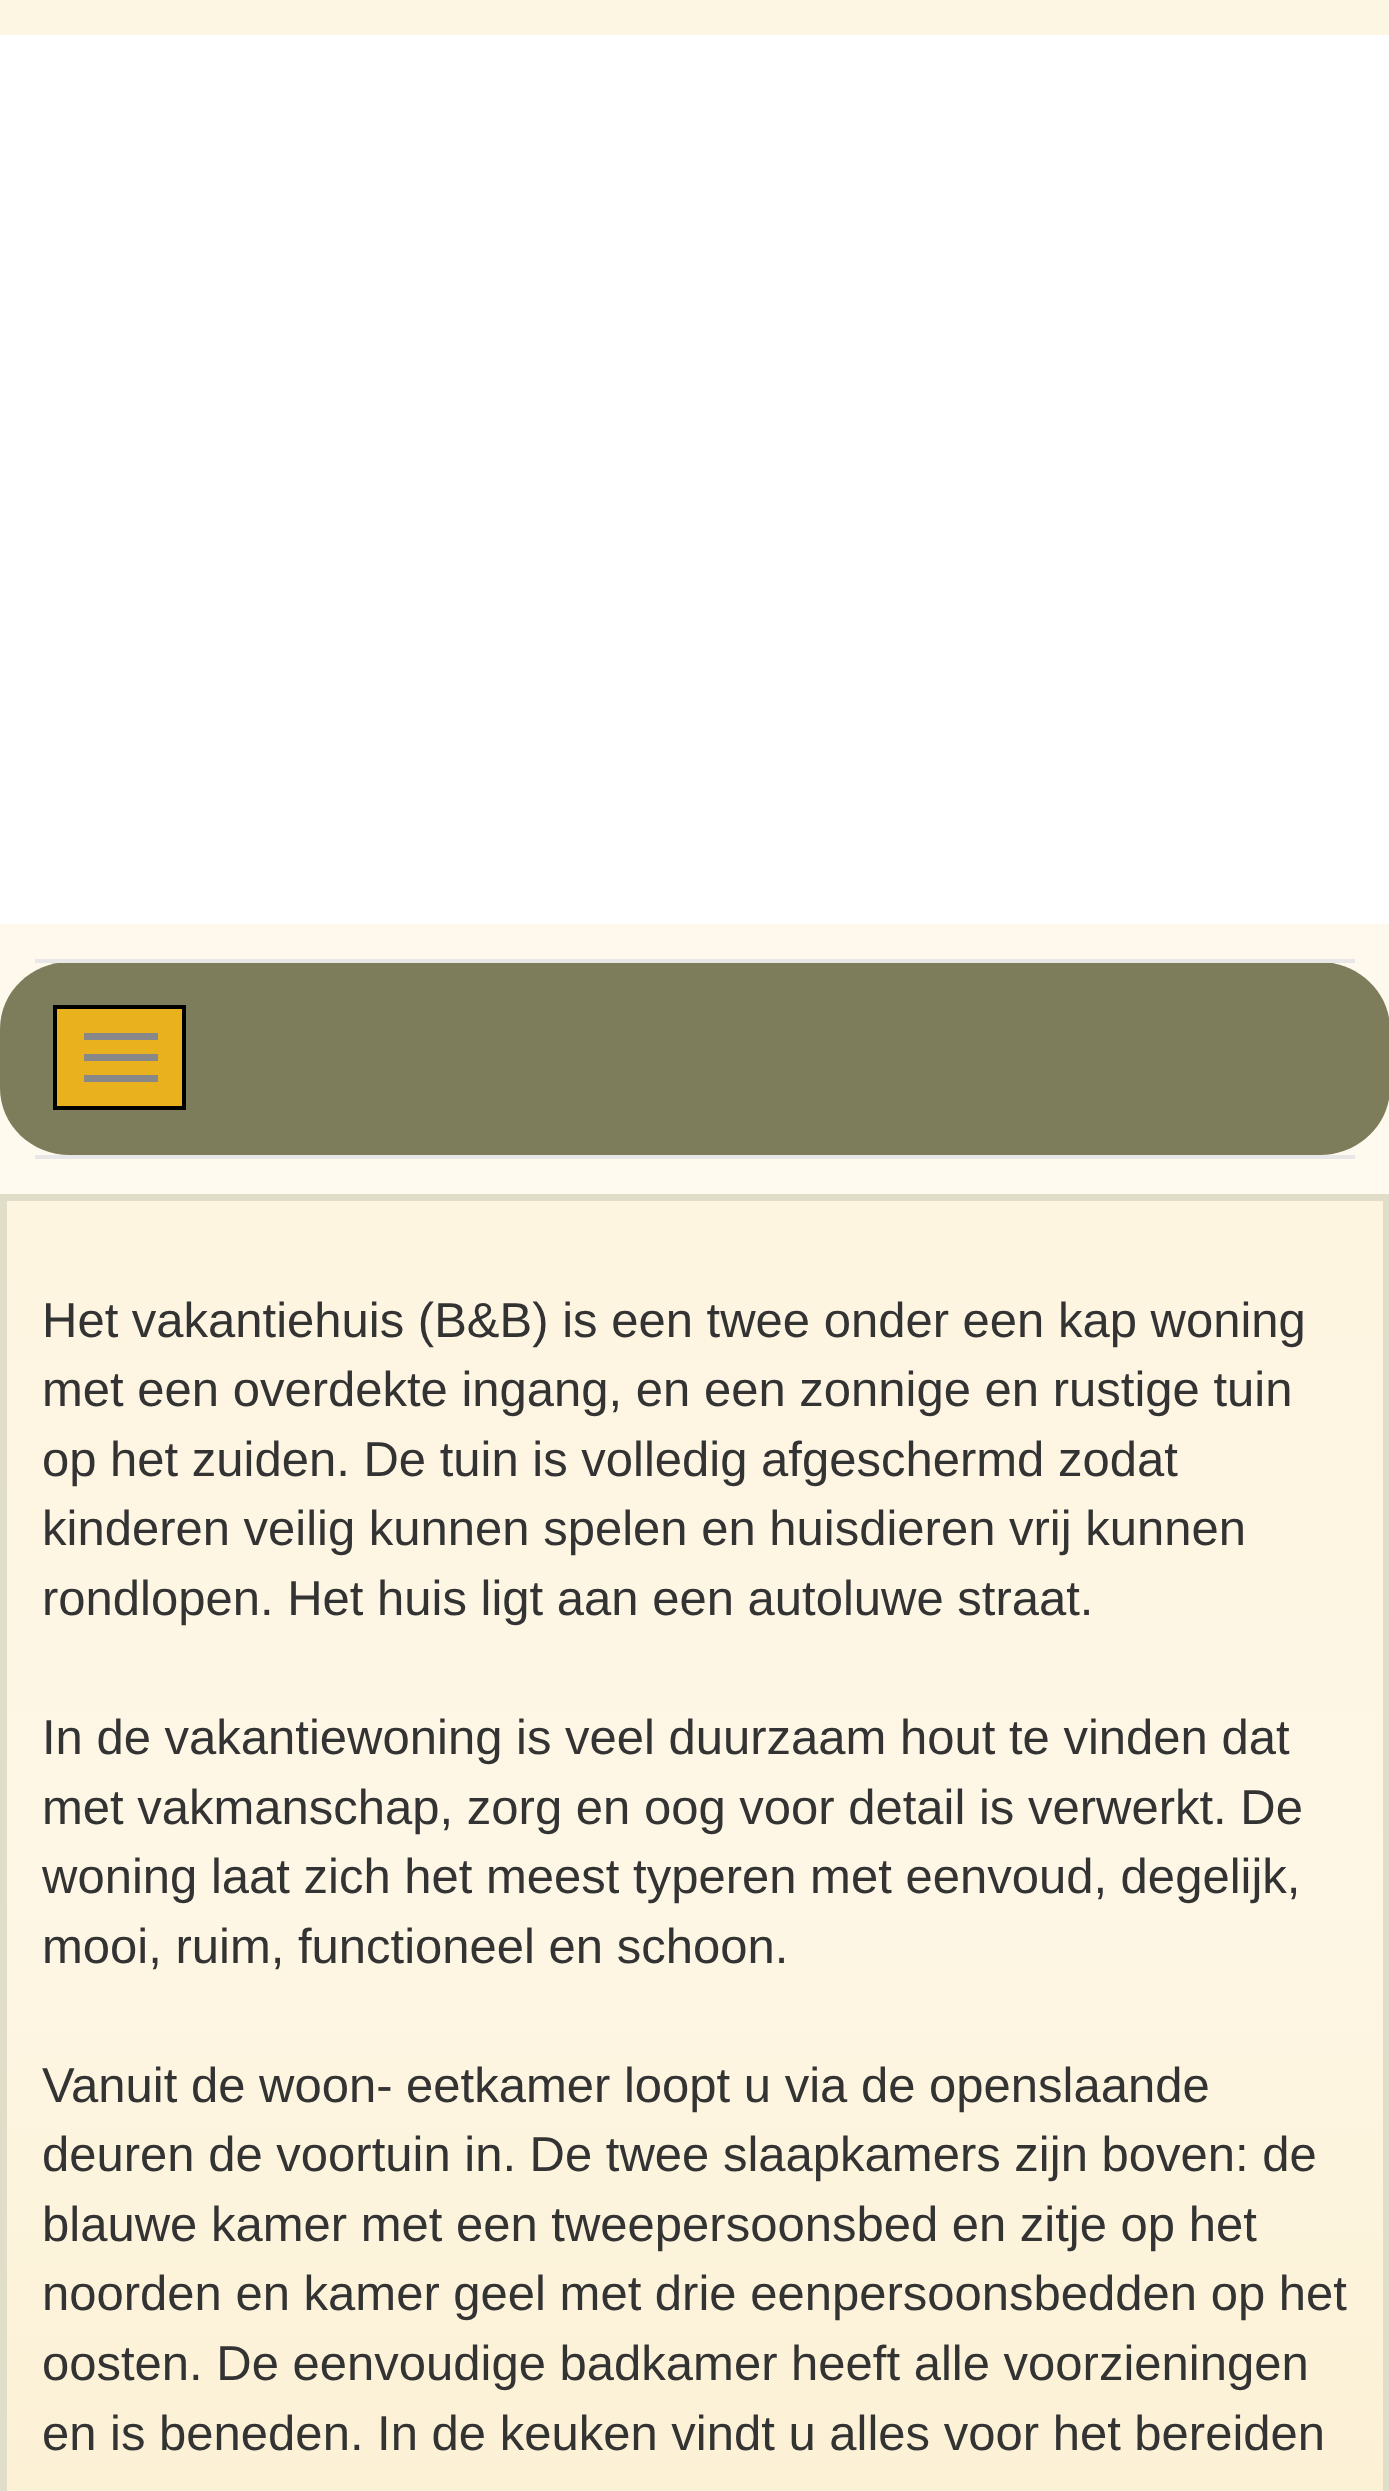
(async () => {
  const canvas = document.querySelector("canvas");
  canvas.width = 1389;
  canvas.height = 2491;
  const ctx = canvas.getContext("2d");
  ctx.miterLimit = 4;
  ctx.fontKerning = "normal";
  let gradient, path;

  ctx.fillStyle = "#ffffff";
  ctx.fillRect(0, 0, 1389, 2491);
  gradient = ctx.createLinearGradient(695, 0, 695, 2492);
  gradient.addColorStop(0, "#fdf6e3");
  gradient.addColorStop(0.25, "#fef8e9");
  gradient.addColorStop(0.75, "#fffcf5");
  gradient.addColorStop(1, "#fdf6e3");
  ctx.fillStyle = gradient;
  ctx.fillRect(0, 0, 1389, 1194);
  gradient = ctx.createLinearGradient(695, 0, 695, 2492);
  gradient.addColorStop(0, "#fcf1d5");
  gradient.addColorStop(0.25, "#fdf3db");
  gradient.addColorStop(0.75, "#fef7e6");
  gradient.addColorStop(1, "#fcf1d5");
  ctx.fillStyle = gradient;
  ctx.fillRect(7, 1201, 1376, 1290);
  ctx.fillStyle = "#ffffff";
  ctx.fillRect(0, 35, 1389, 889);
  ctx.fillStyle = "#7d7d5b";
  path = new Path2D("M70 962H1320C1358 962 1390 992 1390 1029V1088C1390 1125 1358 1155 1320 1155H70C31 1155 0 1125 0 1088V1029C0 992 31 962 70 962Z");
  ctx.fill(path);
  ctx.fillStyle = "#e7e7e7";
  ctx.fillRect(35, 959, 1320, 4);
  ctx.fillRect(35, 1155, 1320, 4);
  ctx.fillStyle = "#eab11f";
  ctx.beginPath();
  ctx.rect(55, 1007, 129, 101);
  ctx.fill();
  ctx.strokeStyle = "#000000";
  ctx.lineWidth = 4;
  ctx.stroke();
  for (const [x, y, w, h, color] of [
    [84, 1033, 74, 7, "#888888"],
    [84, 1054, 74, 7, "#888888"],
    [84, 1075, 74, 7, "#888888"],
  ]) {
    ctx.fillStyle = color;
    ctx.fillRect(x, y, w, h);
  }
  ctx.strokeStyle = "#e0ddc9";
  ctx.lineWidth = 7;
  ctx.strokeRect(3.5, 1197.5, 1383, 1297);
  ctx.font = "49px Liberation Sans";
  ctx.fillStyle = "#333333";
  for (const [text, x, y] of [
    ["Het vakantiehuis (B&B) is een twee onder een kap woning", 42, 1337],
    ["met een overdekte ingang, en een zonnige en rustige tuin", 42, 1406],
    ["op het zuiden. De tuin is volledig afgeschermd zodat", 42, 1476],
    ["kinderen veilig kunnen spelen en huisdieren vrij kunnen", 42, 1545],
    ["rondlopen. Het huis ligt aan een autoluwe straat.", 42, 1615],
    ["In de vakantiewoning is veel duurzaam hout te vinden dat", 42, 1754],
    ["met vakmanschap, zorg en oog voor detail is verwerkt. De", 42, 1824],
    ["woning laat zich het meest typeren met eenvoud, degelijk,", 42, 1893],
    ["mooi, ruim, functioneel en schoon.", 42, 1963],
    ["Vanuit de woon- eetkamer loopt u via de openslaande", 42, 2102],
    ["deuren de voortuin in. De twee slaapkamers zijn boven: de", 42, 2171],
    ["blauwe kamer met een tweepersoonsbed en zitje op het", 42, 2241],
    ["noorden en kamer geel met drie eenpersoonsbedden op het", 42, 2310],
    ["oosten. De eenvoudige badkamer heeft alle voorzieningen", 42, 2380],
    ["en is beneden. In de keuken vindt u alles voor het bereiden", 42, 2450],
  ]) {
    ctx.fillText(text, x, y);
  }
})();
